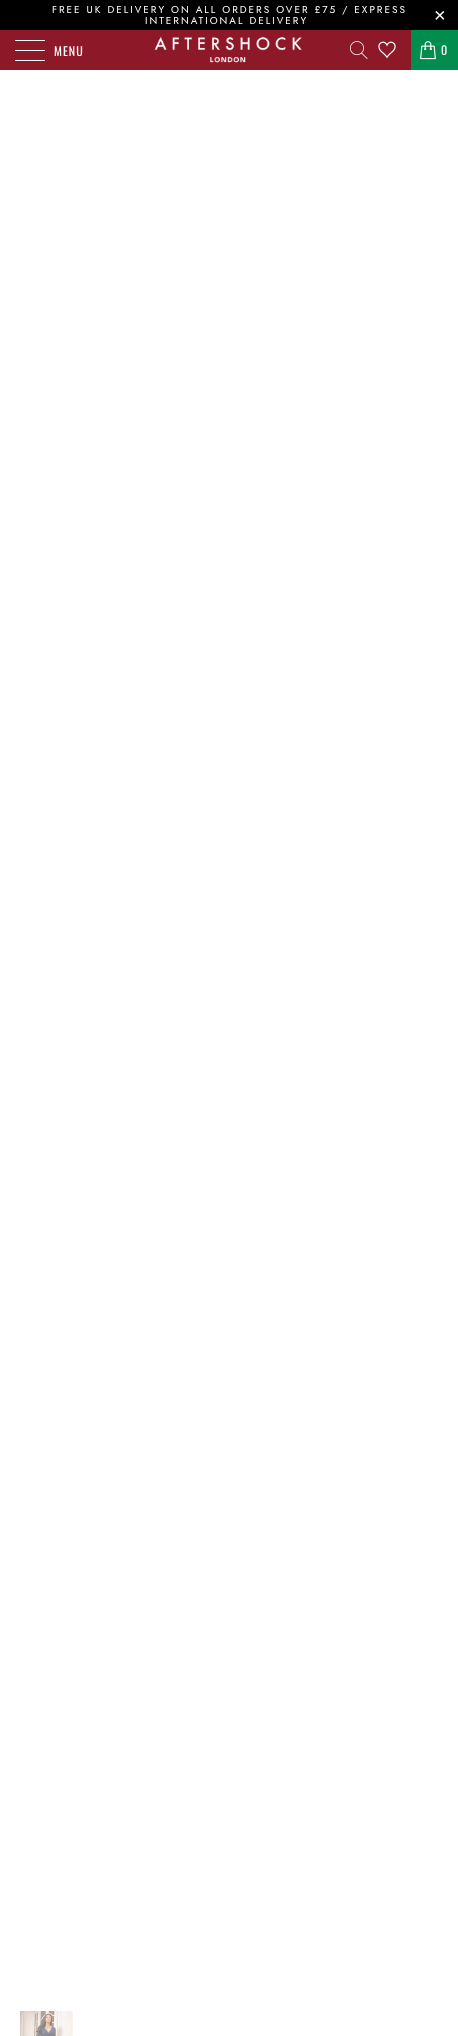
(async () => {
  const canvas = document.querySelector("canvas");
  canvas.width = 458;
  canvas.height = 2036;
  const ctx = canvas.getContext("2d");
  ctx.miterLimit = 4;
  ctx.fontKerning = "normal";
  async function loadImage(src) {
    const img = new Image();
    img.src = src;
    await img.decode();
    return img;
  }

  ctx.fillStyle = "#ffffff";
  ctx.fillRect(0, 0, 458, 2036);
  ctx.fillStyle = "#000000";
  ctx.fillRect(0, 0, 458, 30);
  ctx.fillStyle = "#8d1828";
  ctx.fillRect(0, 30, 411, 40);
  ctx.fillStyle = "#ffffff";
  ctx.beginPath();
  ctx.roundRect(15, 40, 30, 1, 0.5);
  ctx.fill();
  ctx.beginPath();
  ctx.roundRect(15, 50, 30, 1, 0.5);
  ctx.fill();
  ctx.beginPath();
  ctx.roundRect(15, 60, 30, 1, 0.5);
  ctx.fill();
  ctx.drawImage(await loadImage("img/1.png"), 154, 36, 148, 27);
  ctx.drawImage(await loadImage("img/2.png"), 350, 41, 18, 18);
  ctx.drawImage(await loadImage("img/3.png"), 378, 41, 18, 18);
  ctx.fillStyle = "#008d4d";
  ctx.fillRect(411, 30, 47, 40);
  ctx.drawImage(await loadImage("img/4.png"), 420, 41, 16, 19);
  ctx.drawImage(await loadImage("img/5.png"), 20, 2011, 53, 25);
  ctx.letterSpacing = "2px";
  ctx.font = "10px Jost";
  ctx.fillStyle = "#ffffff";
  ctx.fillText("FREE UK DELIVERY ON ALL ORDERS OVER £75 / EXPRESS", 52, 13);
  ctx.fillText("INTERNATIONAL DELIVERY", 145, 24);
  ctx.font = "20px Liberation Sans";
  ctx.fillText("×", 434, 22);
  ctx.letterSpacing = "1px";
  ctx.font = "12px Oswald";
  ctx.fillText("MENU", 54, 56);
  ctx.fillText("0", 441, 55);
})();
